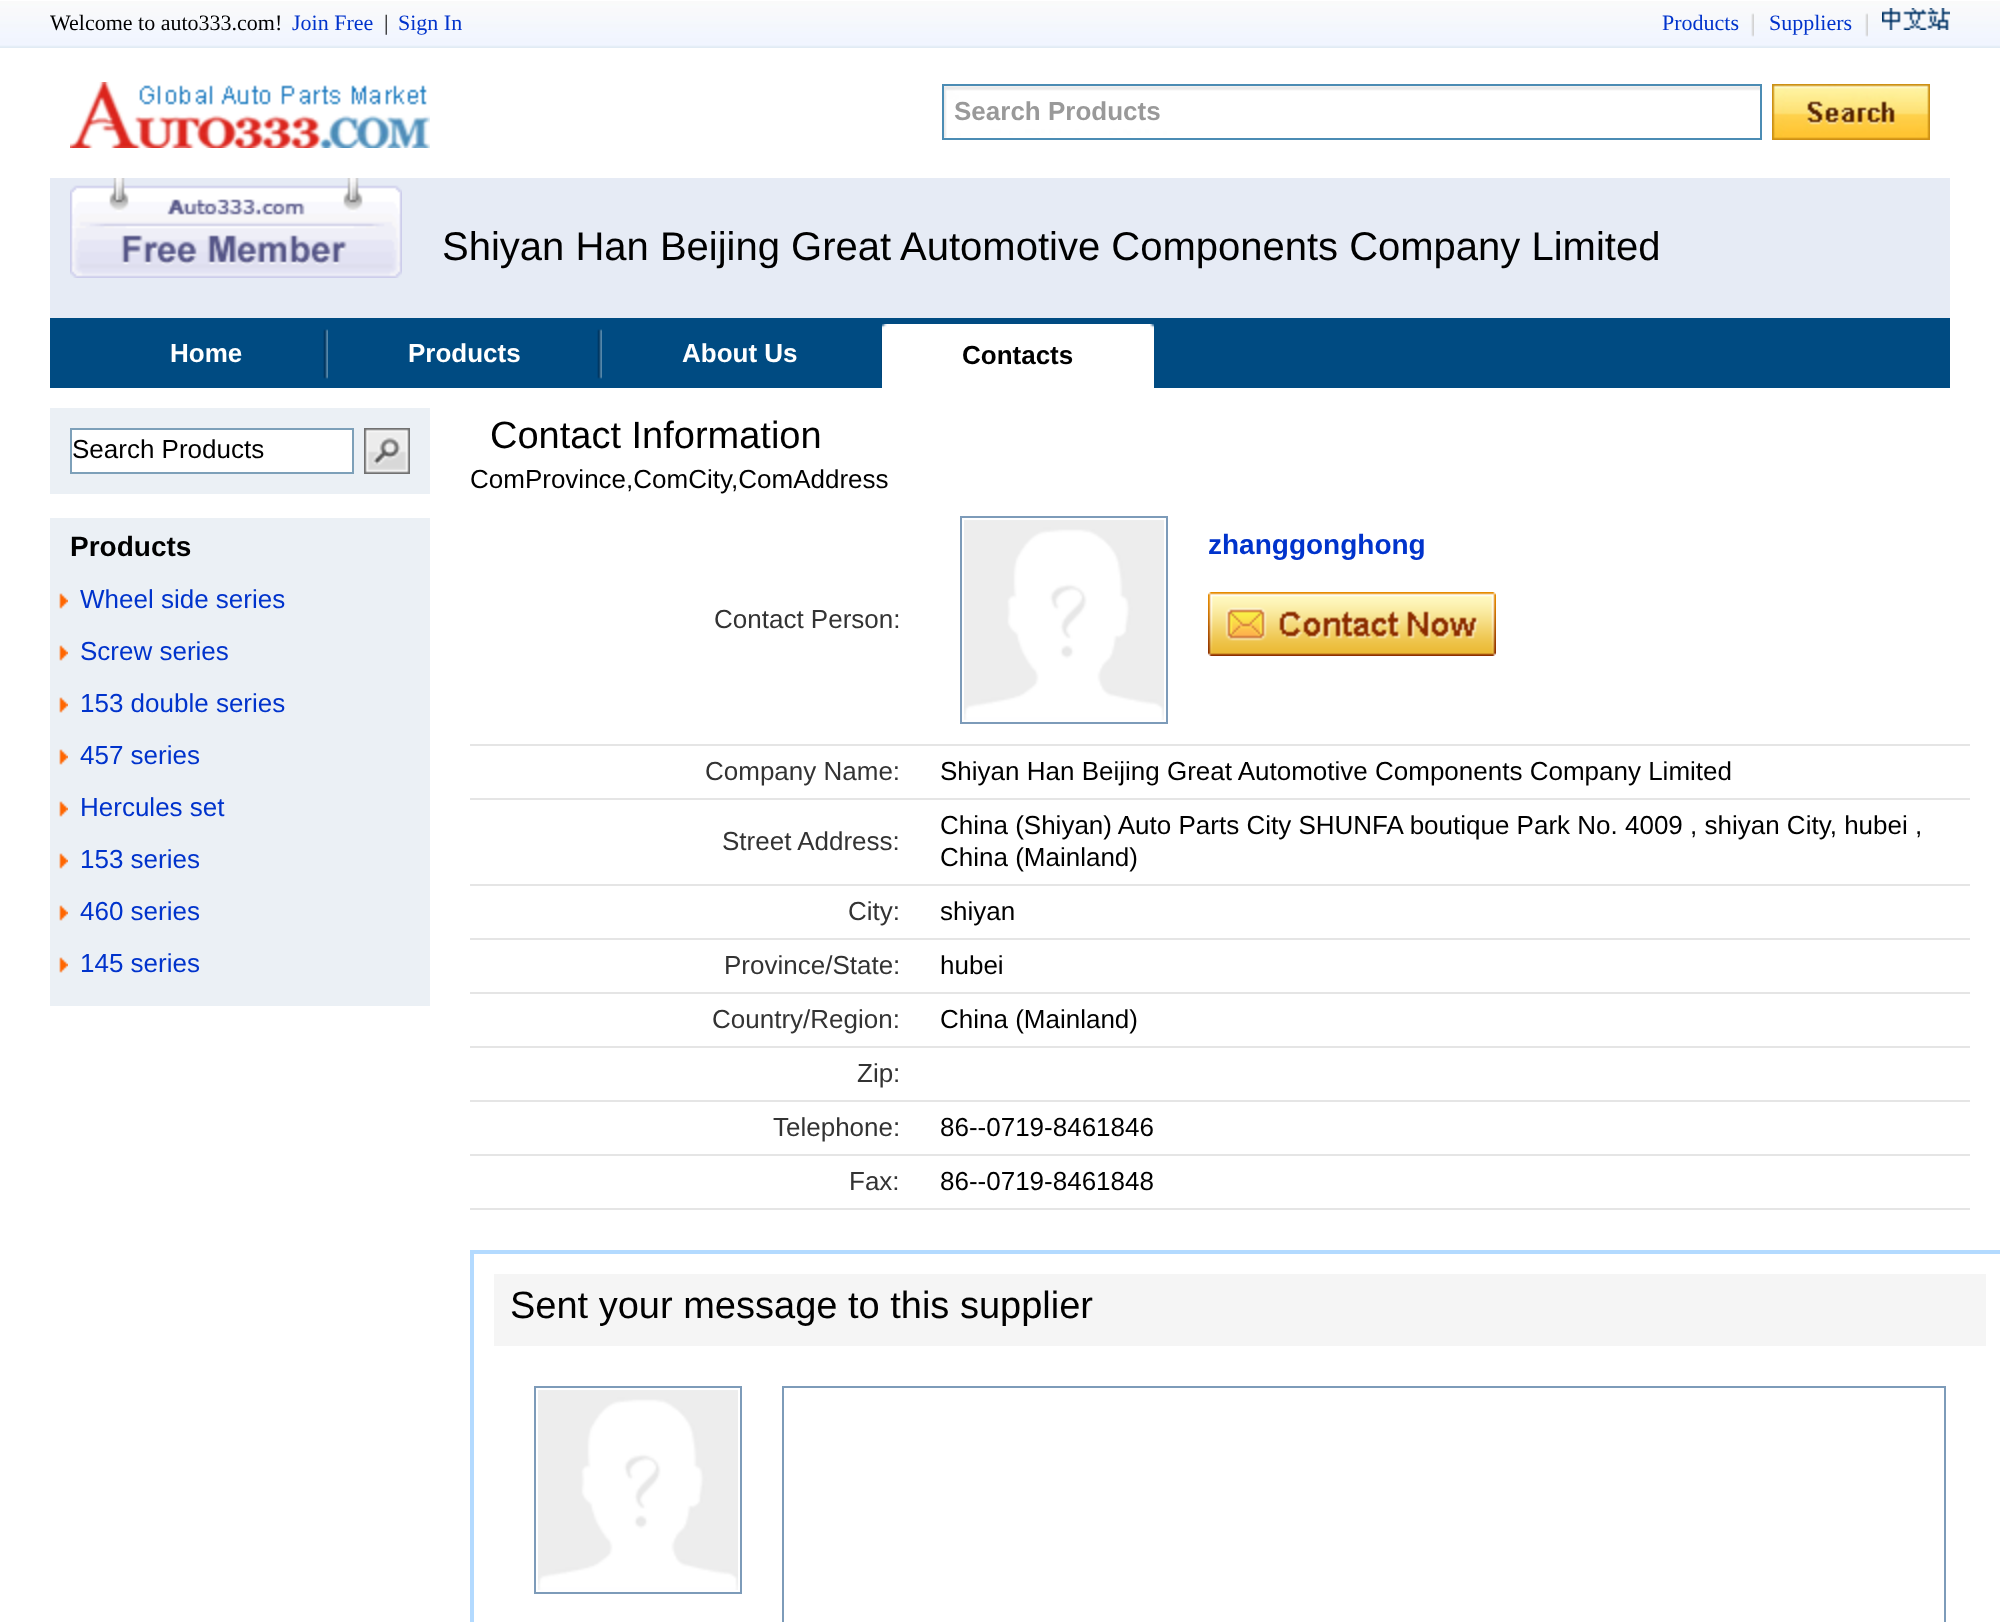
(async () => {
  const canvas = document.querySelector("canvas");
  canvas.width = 2000;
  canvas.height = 1622;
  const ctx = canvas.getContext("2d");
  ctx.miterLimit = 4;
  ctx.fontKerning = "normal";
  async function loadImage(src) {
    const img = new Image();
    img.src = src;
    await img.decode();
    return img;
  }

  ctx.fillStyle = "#ffffff";
  ctx.fillRect(0, 0, 2000, 1622);
  ctx.drawImage(await loadImage("img/1.png"), 0, 1, 2000, 47);
  ctx.drawImage(await loadImage("img/2.png"), 1751, 13, 3, 24);
  ctx.drawImage(await loadImage("img/2.png"), 1865, 13, 3, 24);
  ctx.drawImage(await loadImage("img/3.png"), 1882, 8, 68, 22);
  ctx.drawImage(await loadImage("img/4.png"), 70, 82, 360, 66);
  ctx.drawImage(await loadImage("img/5.png"), 944, 86, 816, 52);
  ctx.strokeStyle = "#4b8cb4";
  ctx.lineWidth = 2;
  ctx.strokeRect(943, 85, 818, 54);
  ctx.drawImage(await loadImage("img/6.png"), 1772, 84, 158, 56);
  ctx.fillStyle = "#e6ebf5";
  ctx.fillRect(50, 178, 1900, 140);
  ctx.drawImage(await loadImage("img/7.png"), 70, 178, 332, 100);
  ctx.fillStyle = "#004b82";
  ctx.fillRect(50, 318, 1900, 70);
  ctx.drawImage(await loadImage("img/8.png"), 323, 329, 5, 50);
  ctx.drawImage(await loadImage("img/8.png"), 597, 329, 5, 50);
  ctx.drawImage(await loadImage("img/9.png"), 881, 329, 1, 50);
  ctx.drawImage(await loadImage("img/10.png"), 1150, 324, 4, 64);
  ctx.drawImage(await loadImage("img/11.png"), 882, 324, 268, 64);
  ctx.fillStyle = "#ebf0f5";
  ctx.fillRect(50, 408, 380, 86);
  ctx.fillStyle = "#ffffff";
  ctx.beginPath();
  ctx.rect(71, 429, 282, 44);
  ctx.fill();
  ctx.strokeStyle = "#7da0b9";
  ctx.stroke();
  ctx.drawImage(await loadImage("img/12.png"), 364, 428, 46, 46);
  ctx.fillStyle = "#ebf0f5";
  ctx.fillRect(50, 518, 380, 488);
  ctx.drawImage(await loadImage("img/13.png"), 59, 593, 9, 16);
  ctx.drawImage(await loadImage("img/13.png"), 59, 645, 9, 16);
  ctx.drawImage(await loadImage("img/13.png"), 59, 697, 9, 16);
  ctx.drawImage(await loadImage("img/13.png"), 59, 749, 9, 16);
  ctx.drawImage(await loadImage("img/13.png"), 59, 801, 9, 16);
  ctx.drawImage(await loadImage("img/13.png"), 59, 853, 9, 16);
  ctx.drawImage(await loadImage("img/13.png"), 59, 905, 9, 16);
  ctx.drawImage(await loadImage("img/13.png"), 59, 957, 9, 16);
  ctx.fillStyle = "#e5e5e5";
  ctx.fillRect(470, 744, 1500, 2);
  ctx.strokeStyle = "#7d9bb9";
  ctx.strokeRect(961, 517, 206, 206);
  ctx.drawImage(await loadImage("img/14.png"), 964, 520, 200, 200);
  ctx.drawImage(await loadImage("img/15.png"), 1208, 592, 288, 64);
  for (const [x, y, w, h, color] of [
    [470, 798, 1500, 2, "#e5e5e5"],
    [470, 884, 1500, 2, "#e5e5e5"],
    [470, 938, 1500, 2, "#e5e5e5"],
    [470, 992, 1500, 2, "#e5e5e5"],
    [470, 1046, 1500, 2, "#e5e5e5"],
    [470, 1100, 1500, 2, "#e5e5e5"],
    [470, 1154, 1500, 2, "#e5e5e5"],
    [470, 1208, 1500, 2, "#e5e5e5"],
  ]) {
    ctx.fillStyle = color;
    ctx.fillRect(x, y, w, h);
  }
  ctx.strokeStyle = "#b3daff";
  ctx.lineWidth = 4;
  ctx.strokeRect(472, 1252, 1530, 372);
  ctx.fillStyle = "#f5f5f5";
  ctx.fillRect(494, 1274, 1492, 72);
  ctx.strokeStyle = "#7d9bb9";
  ctx.lineWidth = 2;
  ctx.strokeRect(535, 1387, 206, 206);
  ctx.drawImage(await loadImage("img/14.png"), 538, 1390, 200, 200);
  ctx.strokeRect(783, 1387, 1162, 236);
  ctx.font = "22px Liberation Serif";
  ctx.fillStyle = "#000000";
  ctx.fillText("Welcome to auto333.com!", 50, 30);
  ctx.fillStyle = "#0033cc";
  ctx.fillText("Join Free", 292, 30);
  ctx.fillStyle = "#000000";
  ctx.fillText("|", 384, 30);
  ctx.fillStyle = "#0033cc";
  for (const [text, x, y] of [
    ["Sign In", 398, 30],
    ["Products", 1662, 30],
    ["Suppliers", 1769, 30],
  ]) {
    ctx.fillText(text, x, y);
  }
  ctx.font = "bold 26px Liberation Sans";
  ctx.fillStyle = "#999999";
  ctx.fillText("Search Products", 954, 120);
  ctx.font = "40px Liberation Sans";
  ctx.fillStyle = "#000000";
  ctx.fillText("Shiyan Han Beijing Great Automotive Components Company Limited", 442, 260);
  ctx.font = "bold 26px Liberation Sans";
  ctx.fillStyle = "#ffffff";
  for (const [text, x, y] of [
    ["Home", 170, 362],
    ["Products", 408, 362],
    ["About Us", 682, 362],
  ]) {
    ctx.fillText(text, x, y);
  }
  ctx.fillStyle = "#000000";
  ctx.fillText("Contacts", 962, 364);
  ctx.font = "26px Liberation Sans";
  ctx.fillText("Search Products", 72, 458);
  ctx.font = "bold 28px Liberation Sans";
  ctx.fillText("Products", 70, 556);
  ctx.font = "26px Liberation Sans";
  ctx.fillStyle = "#0033cc";
  for (const [text, x, y] of [
    ["Wheel side series", 80, 608],
    ["Screw series", 80, 660],
    ["153 double series", 80, 712],
    ["457 series", 80, 764],
    ["Hercules set", 80, 816],
    ["153 series", 80, 868],
    ["460 series", 80, 920],
    ["145 series", 80, 972],
  ]) {
    ctx.fillText(text, x, y);
  }
  ctx.font = "38px Liberation Sans";
  ctx.fillStyle = "#000000";
  ctx.fillText("Contact Information", 490, 448);
  ctx.font = "26px Liberation Sans";
  ctx.fillText("ComProvince,ComCity,ComAddress", 470, 488);
  ctx.font = "bold 28px Liberation Sans";
  ctx.fillStyle = "#0033cc";
  ctx.fillText("zhanggonghong", 1208, 554);
  ctx.font = "26px Liberation Sans";
  ctx.fillStyle = "#333333";
  ctx.fillText("Contact Person:", 714, 628);
  ctx.fillText("Company Name:", 705, 780);
  ctx.fillStyle = "#000000";
  ctx.fillText("Shiyan Han Beijing Great Automotive Components Company Limited", 940, 780);
  ctx.fillStyle = "#333333";
  ctx.fillText("Street Address:", 722, 850);
  ctx.fillStyle = "#000000";
  ctx.fillText("China (Shiyan) Auto Parts City SHUNFA boutique Park No. 4009 , shiyan City, hubei ,", 940, 834);
  ctx.fillText("China (Mainland)", 940, 866);
  ctx.fillStyle = "#333333";
  ctx.fillText("City:", 848, 920);
  ctx.fillStyle = "#000000";
  ctx.fillText("shiyan", 940, 920);
  ctx.fillStyle = "#333333";
  ctx.fillText("Province/State:", 724, 974);
  ctx.fillStyle = "#000000";
  ctx.fillText("hubei", 940, 974);
  ctx.fillStyle = "#333333";
  ctx.fillText("Country/Region:", 712, 1028);
  ctx.fillStyle = "#000000";
  ctx.fillText("China (Mainland)", 940, 1028);
  ctx.fillStyle = "#333333";
  ctx.fillText("Zip:", 857, 1082);
  ctx.fillText("Telephone:", 773, 1136);
  ctx.fillStyle = "#000000";
  ctx.fillText("86--0719-8461846", 940, 1136);
  ctx.fillStyle = "#333333";
  ctx.fillText("Fax:", 849, 1190);
  ctx.fillStyle = "#000000";
  ctx.fillText("86--0719-8461848", 940, 1190);
  ctx.font = "38px Liberation Sans";
  ctx.fillText("Sent your message to this supplier", 510, 1318);
})();
